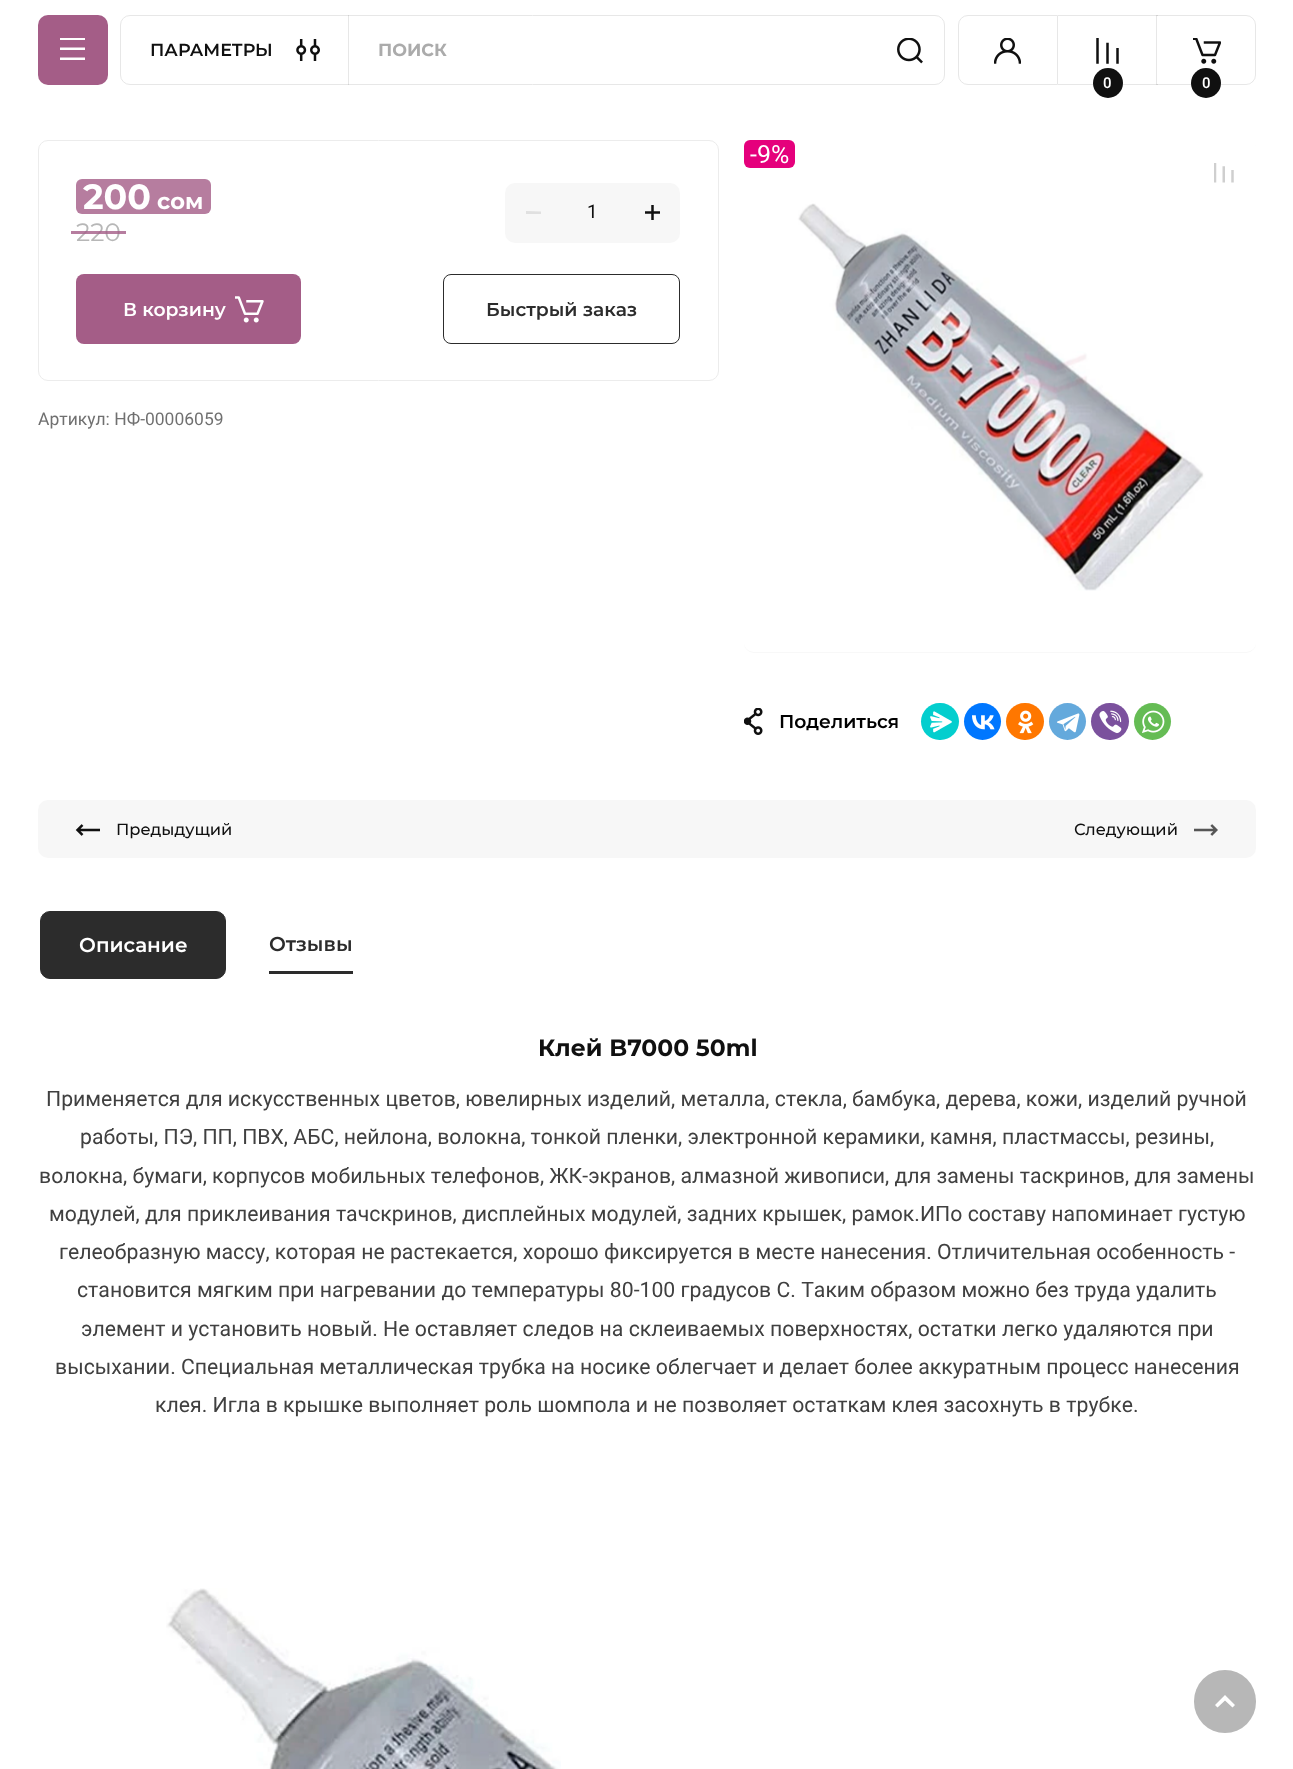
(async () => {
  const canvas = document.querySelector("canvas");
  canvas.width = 1293;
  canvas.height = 1769;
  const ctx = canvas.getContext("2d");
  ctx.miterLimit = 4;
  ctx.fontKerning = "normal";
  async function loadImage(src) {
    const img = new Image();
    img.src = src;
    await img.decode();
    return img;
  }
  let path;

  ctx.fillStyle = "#ffffff";
  ctx.fillRect(0, 0, 1293, 1769);
  ctx.fillStyle = "#a45d87";
  ctx.beginPath();
  ctx.roundRect(38, 15, 70, 70, 10);
  ctx.fill();
  ctx.drawImage(await loadImage("img/1.png"), 60, 38, 25, 22);
  ctx.beginPath();
  ctx.roundRect(120.5, 15.5, 824, 69, 9.5);
  ctx.strokeStyle = "#e7e7e7";
  ctx.stroke();
  ctx.drawImage(await loadImage("img/2.png"), 296, 39, 24, 22);
  ctx.fillStyle = "rgba(16, 16, 16, 0.1)";
  ctx.fillRect(348, 15, 1, 70);
  ctx.drawImage(await loadImage("img/3.png"), 897, 38, 26, 26);
  ctx.beginPath();
  ctx.roundRect(958.5, 15.5, 99, 69, [9.5, 0, 0, 9.5]);
  ctx.stroke();
  ctx.drawImage(await loadImage("img/4.png"), 994, 38, 27, 26);
  ctx.fillStyle = "#e7e7e7";
  ctx.fillRect(1058, 15, 100, 1);
  ctx.fillRect(1058, 84, 100, 1);
  ctx.drawImage(await loadImage("img/5.png"), 1096, 38, 23, 26);
  ctx.fillStyle = "#101010";
  ctx.beginPath();
  ctx.arc(1108, 83, 15, 0, Math.PI * 2);
  ctx.fill();
  ctx.beginPath();
  ctx.roundRect(1156.5, 15.5, 99, 69, [0, 9.5, 9.5, 0]);
  ctx.strokeStyle = "rgba(16, 16, 16, 0.1)";
  ctx.stroke();
  ctx.drawImage(await loadImage("img/6.png"), 1193, 38, 28, 26);
  ctx.beginPath();
  ctx.arc(1206, 83, 15, 0, Math.PI * 2);
  ctx.fill();
  ctx.beginPath();
  ctx.roundRect(38.5, 140.5, 680, 240, 9.5);
  ctx.strokeStyle = "#ececec";
  ctx.stroke();
  ctx.fillStyle = "#b67d9f";
  ctx.beginPath();
  ctx.roundRect(76, 179, 135, 35, 6);
  ctx.fill();
  ctx.fillStyle = "#f7f7f7";
  ctx.beginPath();
  ctx.roundRect(505, 183, 175, 60, 10);
  ctx.fill();
  ctx.fillStyle = "#e0e0e0";
  path = new Path2D("M541 214H526V211L541 211.5Z");
  ctx.fill(path);
  ctx.drawImage(await loadImage("img/7.png"), 645, 205, 15, 15);
  ctx.fillStyle = "#a45d87";
  ctx.beginPath();
  ctx.roundRect(76, 274, 225, 70, 8);
  ctx.fill();
  ctx.drawImage(await loadImage("img/8.png"), 235, 296, 29, 27);
  ctx.beginPath();
  ctx.roundRect(443.5, 274.5, 236, 69, 7.5);
  ctx.strokeStyle = "#2c2c2c";
  ctx.stroke();
  ctx.fillStyle = "#f8f8f8";
  ctx.beginPath();
  ctx.roundRect(744, 140, 512, 513, 10);
  ctx.fill();
  ctx.drawImage(await loadImage("img/9.png"), 744, 140, 512, 512);
  ctx.fillStyle = "#e5007c";
  ctx.beginPath();
  ctx.roundRect(744, 140, 51, 28, 6);
  ctx.fill();
  ctx.drawImage(await loadImage("img/10.png"), 1214, 163, 20, 20);
  ctx.drawImage(await loadImage("img/11.png"), 744, 708, 19, 27);
  ctx.fillStyle = "#03cece";
  ctx.beginPath();
  ctx.roundRect(921, 703, 38, 37, 18.5);
  ctx.fill();
  ctx.drawImage(await loadImage("img/12.png"), 930, 711, 22, 22);
  ctx.fillStyle = "#0077ff";
  ctx.beginPath();
  ctx.arc(982.5, 721.5, 18.5, 0, Math.PI * 2);
  ctx.fill();
  ctx.drawImage(await loadImage("img/13.png"), 972, 715, 23, 15);
  ctx.fillStyle = "#ff7700";
  ctx.beginPath();
  ctx.roundRect(1006, 703, 38, 37, 18.5);
  ctx.fill();
  ctx.drawImage(await loadImage("img/14.png"), 1018, 710, 16, 24);
  ctx.fillStyle = "#64a9dc";
  ctx.beginPath();
  ctx.arc(1067.5, 721.5, 18.5, 0, Math.PI * 2);
  ctx.fill();
  ctx.drawImage(await loadImage("img/15.png"), 1056, 713, 24, 20);
  ctx.fillStyle = "#7b519d";
  ctx.beginPath();
  ctx.roundRect(1091, 703, 38, 37, 18.5);
  ctx.fill();
  ctx.drawImage(await loadImage("img/16.png"), 1099, 710, 23, 24);
  ctx.fillStyle = "#65bc54";
  ctx.beginPath();
  ctx.arc(1152.5, 721.5, 18.5, 0, Math.PI * 2);
  ctx.fill();
  ctx.drawImage(await loadImage("img/17.png"), 1142, 710, 23, 23);
  ctx.fillStyle = "#f7f7f7";
  ctx.beginPath();
  ctx.roundRect(38, 800, 610, 58, [10, 0, 0, 10]);
  ctx.fill();
  ctx.drawImage(await loadImage("img/18.png"), 75, 824, 25, 12);
  ctx.beginPath();
  ctx.roundRect(648, 800, 608, 58, [0, 10, 10, 0]);
  ctx.fill();
  ctx.drawImage(await loadImage("img/19.png"), 1194, 824, 24, 12);
  ctx.fillStyle = "#2c2c2c";
  ctx.beginPath();
  ctx.roundRect(40.5, 911.5, 185, 67, 9.5);
  ctx.fill();
  ctx.stroke();
  ctx.fillRect(269, 971, 84, 3);
  ctx.drawImage(await loadImage("img/20.png"), 166, 1588, 395, 181);
  ctx.fillStyle = "#b7b7b7";
  ctx.beginPath();
  ctx.roundRect(1194, 1670, 62, 63, 31);
  ctx.fill();
  ctx.fillStyle = "#ffffff";
  path = new Path2D("M1215 1705L1217.5 1707.5L1225 1700.5L1232.5 1707.5L1235 1705L1225 1695Z");
  ctx.fill(path);
  ctx.font = "600 17.5px Montserrat";
  ctx.fillStyle = "#101010";
  ctx.fillText("ПАРАМЕТРЫ", 150, 56);
  ctx.font = "bold 17.5px Montserrat";
  ctx.fillStyle = "#ababab";
  ctx.fillText("ПОИСК", 378, 56);
  ctx.font = "500 15px Roboto";
  ctx.fillStyle = "#ffffff";
  ctx.fillText("0", 1103, 88);
  ctx.fillText("0", 1202, 88);
  ctx.font = "bold 35px Montserrat";
  ctx.fillText("200", 83, 209);
  ctx.font = "bold 22.5px Montserrat";
  ctx.fillText("сом", 157, 209);
  ctx.font = "25px Montserrat";
  ctx.fillStyle = "#b7b7b7";
  ctx.fillText("220", 76, 241);
  ctx.fillStyle = "rgba(164, 93, 135, 0.8)";
  ctx.fillRect(71, 231, 55, 3);
  ctx.font = "18.75px Roboto";
  ctx.fillStyle = "#101010";
  ctx.fillText("1", 587, 218);
  ctx.font = "600 18.75px Montserrat";
  ctx.fillStyle = "#ffffff";
  ctx.fillText("В корзину", 123, 316);
  ctx.fillStyle = "#2c2c2c";
  ctx.fillText("Быстрый заказ", 486, 316);
  ctx.font = "17.5px Roboto";
  ctx.fillStyle = "#707070";
  ctx.fillText("Артикул: НФ-00006059", 38, 425);
  ctx.font = "25px Roboto";
  ctx.fillStyle = "#ffffff";
  ctx.fillText("-9%", 750, 163);
  ctx.font = "600 18.75px Montserrat";
  ctx.fillStyle = "#000000";
  ctx.fillText("Поделиться", 779, 728);
  ctx.font = "500 16.25px Montserrat";
  ctx.fillStyle = "#101010";
  ctx.fillText("Предыдущий", 116, 835);
  ctx.fillText("Следующий", 1074, 835);
  ctx.font = "600 20px Montserrat";
  ctx.fillStyle = "#ffffff";
  ctx.fillText("Описание", 79, 952);
  ctx.fillStyle = "#2c2c2c";
  ctx.fillText("Отзывы", 269, 951);
  ctx.font = "bold 23.5px Montserrat";
  ctx.fillStyle = "#101010";
  ctx.fillText("Клей B7000 50ml", 538, 1056);
  ctx.font = "21.25px Roboto";
  ctx.fillStyle = "#404040";
  for (const [text, x, y] of [
    ["Применяется для искусственных цветов, ювелирных изделий, металла, стекла, бамбука, дерева, кожи, изделий ручной", 46, 1106],
    ["работы, ПЭ, ПП, ПВХ, АБС, нейлона, волокна, тонкой пленки, электронной керамики, камня, пластмассы, резины,", 80, 1144],
    ["волокна, бумаги, корпусов мобильных телефонов, ЖК-экранов, алмазной живописи, для замены таскринов, для замены", 39, 1183],
    ["модулей, для приклеивания тачскринов, дисплейных модулей, задних крышек, рамок.ИПо составу напоминает густую", 49, 1221],
    ["гелеобразную массу, которая не растекается, хорошо фиксируется в месте нанесения. Отличительная особенность -", 59, 1259],
    ["становится мягким при нагревании до температуры 80-100 градусов С. Таким образом можно без труда удалить", 77, 1297],
    ["элемент и установить новый. Не оставляет следов на склеиваемых поверхностях, остатки легко удаляются при", 81, 1336],
    ["высыхании. Специальная металлическая трубка на носике облегчает и делает более аккуратным процесс нанесения", 55, 1374],
    ["клея. Игла в крышке выполняет роль шомпола и не позволяет остаткам клея засохнуть в трубке.", 155, 1412],
  ]) {
    ctx.fillText(text, x, y);
  }
})();
